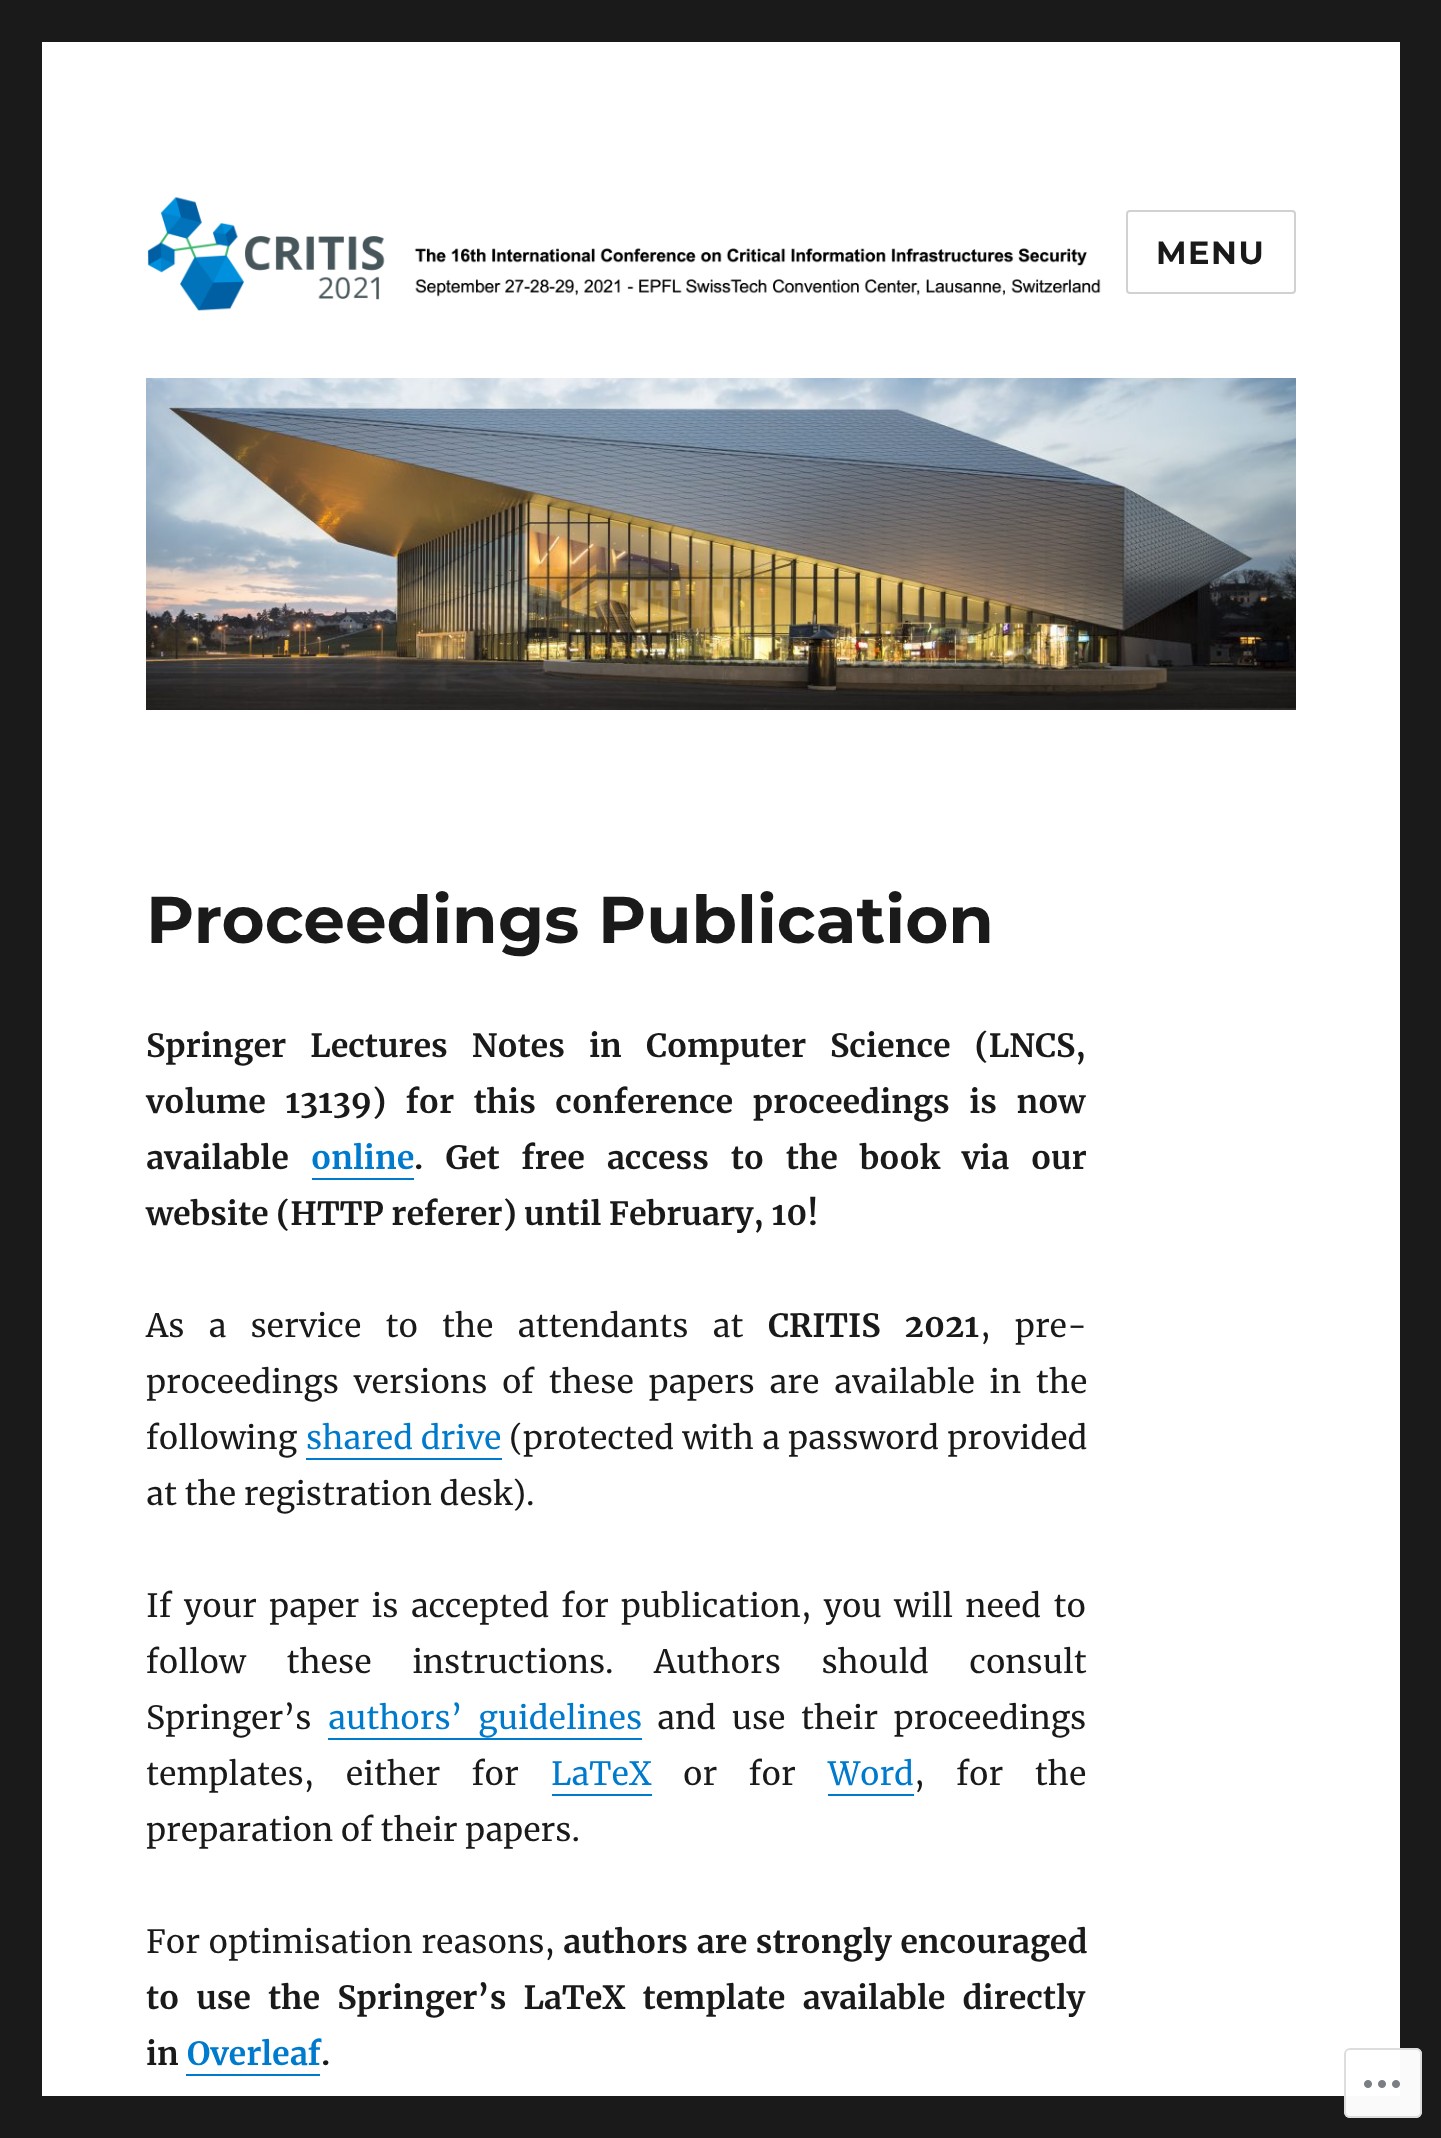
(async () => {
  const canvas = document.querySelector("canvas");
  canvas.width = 1441;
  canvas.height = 2138;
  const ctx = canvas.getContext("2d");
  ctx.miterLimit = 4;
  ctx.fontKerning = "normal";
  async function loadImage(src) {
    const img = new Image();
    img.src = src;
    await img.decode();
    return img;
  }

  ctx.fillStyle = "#1a1a1a";
  ctx.fillRect(0, 0, 1441, 2138);
  ctx.fillStyle = "#ffffff";
  ctx.fillRect(42, 42, 1358, 2054);
  ctx.drawImage(await loadImage("img/1.png"), 147, 196, 954, 115);
  ctx.beginPath();
  ctx.roundRect(1127, 211, 168, 82, 3);
  ctx.strokeStyle = "#d1d1d1";
  ctx.lineWidth = 2;
  ctx.stroke();
  ctx.drawImage(await loadImage("img/2.png"), 146, 378, 1150, 332);
  for (const [x, y, w, h, color] of [
    [312, 1178, 102, 2, "#007acc"],
    [306, 1458, 196, 2, "#007acc"],
    [328, 1738, 314, 2, "#007acc"],
    [552, 1794, 100, 2, "#007acc"],
    [828, 1794, 86, 2, "#007acc"],
    [186, 2074, 134, 2, "#007acc"],
  ]) {
    ctx.fillStyle = color;
    ctx.fillRect(x, y, w, h);
  }
  ctx.fillStyle = "rgba(255, 255, 255, 0.98)";
  ctx.beginPath();
  ctx.roundRect(1344, 2048, 78, 70, 6);
  ctx.fill();
  ctx.beginPath();
  ctx.roundRect(1345, 2049, 76, 68, 5);
  ctx.strokeStyle = "rgba(220, 220, 222, 0.98)";
  ctx.stroke();
  ctx.drawImage(await loadImage("img/3.png"), 1364, 2080, 36, 8);
  ctx.letterSpacing = "1.5px";
  ctx.font = "100 32px Montserrat";
  ctx.fillStyle = "#1a1a1a";
  ctx.fillText("MENU", 1156, 264);
  ctx.letterSpacing = "0px";
  ctx.font = "100 66px Montserrat";
  ctx.fillText("Proceedings Publication", 146, 943);
  ctx.wordSpacing = "16.5px";
  ctx.font = "bold 32px Merriweather";
  ctx.fillText("Springer Lectures Notes in Computer Science (LNCS,", 146, 1057);
  ctx.wordSpacing = "12px";
  ctx.fillText("volume 13139) for this conference proceedings is now", 146, 1113);
  ctx.wordSpacing = "0px";
  ctx.fillText("available", 146, 1169);
  ctx.fillStyle = "#007acc";
  ctx.fillText("online", 311, 1169);
  ctx.wordSpacing = "14.25px";
  ctx.fillStyle = "#1a1a1a";
  ctx.fillText(". Get free access to the book via our", 414, 1169);
  ctx.wordSpacing = "0px";
  ctx.fillText("website (HTTP referer) until February, 10!", 146, 1225);
  ctx.wordSpacing = "16.5px";
  ctx.font = "32px Merriweather";
  ctx.fillText("As a service to the attendants at", 146, 1337);
  ctx.font = "bold 32px Merriweather";
  ctx.fillText("CRITIS 2021", 768, 1337);
  ctx.font = "32px Merriweather";
  ctx.fillText(", pre-", 980, 1337);
  ctx.wordSpacing = "7px";
  ctx.fillText("proceedings versions of these papers are available in the", 146, 1393);
  ctx.wordSpacing = "0px";
  ctx.fillText("following", 146, 1449);
  ctx.fillStyle = "#007acc";
  ctx.fillText("shared drive", 306, 1449);
  ctx.wordSpacing = "0.5px";
  ctx.fillStyle = "#1a1a1a";
  ctx.fillText("(protected with a password provided", 509, 1449);
  ctx.wordSpacing = "0px";
  ctx.fillText("at the registration desk).", 146, 1505);
  ctx.wordSpacing = "4.75px";
  ctx.fillText("If your paper is accepted for publication, you will need to", 146, 1617);
  ctx.wordSpacing = "33px";
  ctx.fillText("follow these instructions. Authors should consult", 146, 1673);
  ctx.wordSpacing = "0px";
  ctx.fillText("Springer’s", 146, 1729);
  ctx.wordSpacing = "8px";
  ctx.fillStyle = "#007acc";
  ctx.fillText("authors’ guidelines", 328, 1729);
  ctx.fillStyle = "#1a1a1a";
  ctx.fillText("and use their proceedings", 657, 1729);
  ctx.wordSpacing = "24px";
  ctx.fillText("templates, either for", 146, 1785);
  ctx.wordSpacing = "0px";
  ctx.fillStyle = "#007acc";
  ctx.fillText("LaTeX", 551, 1785);
  ctx.wordSpacing = "24px";
  ctx.fillStyle = "#1a1a1a";
  ctx.fillText("or for", 683, 1785);
  ctx.wordSpacing = "0px";
  ctx.fillStyle = "#007acc";
  ctx.fillText("Word", 828, 1785);
  ctx.wordSpacing = "24px";
  ctx.fillStyle = "#1a1a1a";
  ctx.fillText(", for the", 914, 1785);
  ctx.wordSpacing = "0px";
  ctx.fillText("preparation of their papers.", 146, 1841);
  ctx.wordSpacing = "1px";
  ctx.fillText("For optimisation reasons,", 146, 1953);
  ctx.font = "bold 32px Merriweather";
  ctx.fillText("authors are strongly encouraged", 563, 1953);
  ctx.wordSpacing = "9.5px";
  ctx.fillText("to use the Springer’s LaTeX template available directly", 146, 2009);
  ctx.wordSpacing = "0px";
  ctx.fillText("in", 146, 2065);
  ctx.fillStyle = "#007acc";
  ctx.fillText("Overleaf", 187, 2065);
  ctx.fillStyle = "#1a1a1a";
  ctx.fillText(".", 321, 2065);
})();
